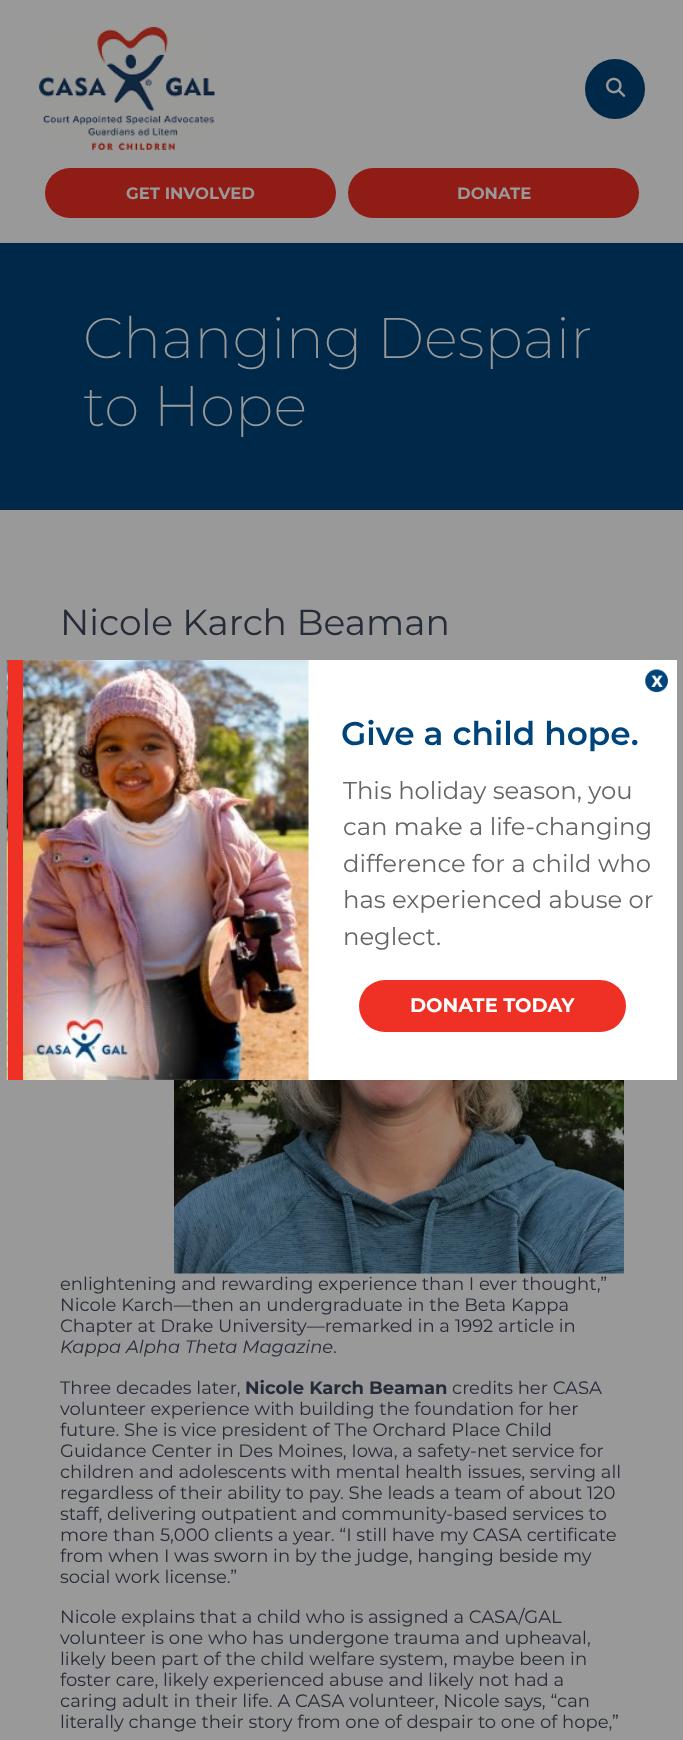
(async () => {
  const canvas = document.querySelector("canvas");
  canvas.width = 683;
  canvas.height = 1740;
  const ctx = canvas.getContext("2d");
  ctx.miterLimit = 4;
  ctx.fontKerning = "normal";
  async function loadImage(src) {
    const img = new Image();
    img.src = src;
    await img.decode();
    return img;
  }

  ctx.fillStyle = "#999999";
  ctx.fillRect(0, 0, 683, 1740);
  ctx.drawImage(await loadImage("img/1.png"), 39, 27, 176, 123);
  ctx.fillStyle = "#002849";
  ctx.beginPath();
  ctx.arc(615, 89, 30, 0, Math.PI * 2);
  ctx.fill();
  ctx.drawImage(await loadImage("img/2.png"), 606, 77, 20, 20);
  ctx.fillStyle = "#8f1d16";
  ctx.beginPath();
  ctx.roundRect(45, 168, 291, 50, 25);
  ctx.fill();
  ctx.beginPath();
  ctx.roundRect(348, 168, 291, 50, 25);
  ctx.fill();
  ctx.fillStyle = "#002849";
  ctx.fillRect(0, 243, 683, 267);
  ctx.drawImage(await loadImage("img/3.png"), 174, 1080, 450, 194);
  ctx.fillStyle = "#ffffff";
  ctx.fillRect(23, 660, 654, 420);
  ctx.drawImage(await loadImage("img/4.png"), 6, 660, 303, 420);
  ctx.fillStyle = "#ee3124";
  ctx.fillRect(8, 660, 15, 420);
  ctx.drawImage(await loadImage("img/5.png"), 645, 669, 23, 24);
  ctx.beginPath();
  ctx.roundRect(359, 980, 267, 52, 26);
  ctx.fill();
  ctx.font = "bold 16.5px Montserrat";
  ctx.fillStyle = "#999999";
  ctx.fillText("GET INVOLVED", 126, 199);
  ctx.fillText("DONATE", 457, 199);
  ctx.font = "200 57px Montserrat";
  ctx.fillText("Changing Despair", 83, 358);
  ctx.fillText("to Hope", 83, 426);
  ctx.font = "36px Montserrat";
  ctx.fillStyle = "#262b38";
  ctx.fillText("Nicole Karch Beaman", 60, 635);
  ctx.font = "18px Montserrat";
  for (const [text, x, y] of [
    ["enlightening and rewarding experience than I ever thought,”", 60, 1290],
    ["Nicole Karch—then an undergraduate in the Beta Kappa", 60, 1311],
    ["Chapter at Drake University—remarked in a 1992 article in", 60, 1332],
  ]) {
    ctx.fillText(text, x, y);
  }
  ctx.font = "italic 18px Montserrat";
  ctx.fillText("Kappa Alpha Theta Magazine", 60, 1353);
  ctx.font = "18px Montserrat";
  ctx.fillText(".", 333, 1353);
  ctx.fillText("Three decades later,", 60, 1394);
  ctx.font = "bold 18px Montserrat";
  ctx.fillText("Nicole Karch Beaman", 245, 1394);
  ctx.font = "18px Montserrat";
  for (const [text, x, y] of [
    ["credits her CASA", 452, 1394],
    ["volunteer experience with building the foundation for her", 60, 1415],
    ["future. She is vice president of The Orchard Place Child", 60, 1436],
    ["Guidance Center in Des Moines, Iowa, a safety-net service for", 60, 1457],
    ["children and adolescents with mental health issues, serving all", 60, 1478],
    ["regardless of their ability to pay. She leads a team of about 120", 60, 1499],
    ["staff, delivering outpatient and community-based services to", 60, 1520],
    ["more than 5,000 clients a year. “I still have my CASA certificate", 60, 1541],
    ["from when I was sworn in by the judge, hanging beside my", 60, 1562],
    ["social work license.”", 60, 1583],
    ["Nicole explains that a child who is assigned a CASA/GAL", 60, 1623],
    ["volunteer is one who has undergone trauma and upheaval,", 60, 1644],
    ["likely been part of the child welfare system, maybe been in", 60, 1665],
    ["foster care, likely experienced abuse and likely not had a", 60, 1686],
    ["caring adult in their life. A CASA volunteer, Nicole says, “can", 60, 1707],
    ["literally change their story from one of despair to one of hope,”", 60, 1728],
  ]) {
    ctx.fillText(text, x, y);
  }
  ctx.font = "600 32.75px Montserrat";
  ctx.fillStyle = "#00447c";
  ctx.fillText("Give a child hope.", 341, 745);
  ctx.font = "24.3px Montserrat";
  ctx.fillStyle = "#656565";
  for (const [text, x, y] of [
    ["This holiday season, you", 343, 799],
    ["can make a life-changing", 343, 835],
    ["difference for a child who", 343, 872],
    ["has experienced abuse or", 343, 908],
    ["neglect.", 343, 945],
  ]) {
    ctx.fillText(text, x, y);
  }
  ctx.font = "bold 19.5px Montserrat";
  ctx.fillStyle = "#ffffff";
  ctx.fillText("DONATE TODAY", 410, 1012);
})();
